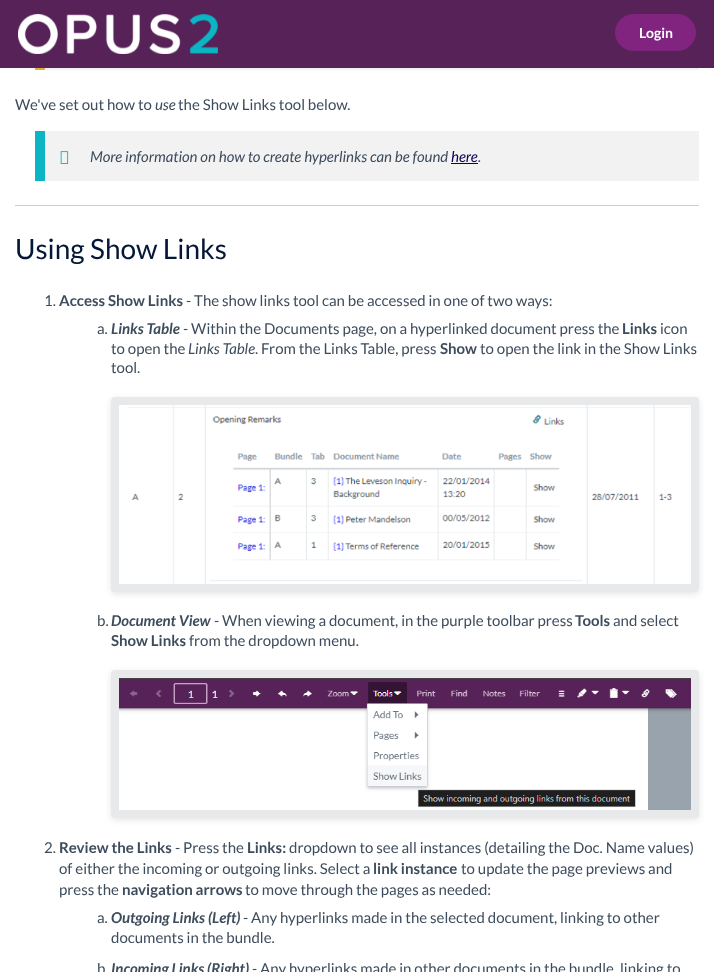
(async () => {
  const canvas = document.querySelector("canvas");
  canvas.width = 714;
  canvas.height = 972;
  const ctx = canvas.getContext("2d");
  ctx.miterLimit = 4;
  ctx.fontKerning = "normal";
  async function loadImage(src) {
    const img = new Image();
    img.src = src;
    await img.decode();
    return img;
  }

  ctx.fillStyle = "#ffffff";
  ctx.fillRect(0, 0, 714, 972);
  ctx.fillStyle = "#572258";
  ctx.fillRect(0, 0, 714, 68);
  ctx.drawImage(await loadImage("img/1.png"), 18, 14, 200, 40);
  ctx.fillStyle = "#802480";
  ctx.beginPath();
  ctx.roundRect(615.5, 14.5, 80, 36, 18);
  ctx.fill();
  ctx.strokeStyle = "#802480";
  ctx.stroke();
  for (const [x, y, w, h, color] of [
    [45, 68, 654, 2, "#f2f2f2"],
    [35, 68, 10, 2, "#e2ab3b"],
    [45, 131, 654, 50, "#f2f2f2"],
    [35, 131, 10, 50, "#0bb5c4"],
  ]) {
    ctx.fillStyle = color;
    ctx.fillRect(x, y, w, h);
  }
  ctx.drawImage(await loadImage("img/2.png"), 60, 151, 9, 13);
  ctx.fillStyle = "#0d0059";
  ctx.fillRect(451, 163, 27, 1);
  ctx.fillStyle = "#d5c8d5";
  ctx.fillRect(15, 205, 684, 1);
  ctx.fillStyle = "rgba(0, 0, 0, 0.1)";
  ctx.filter = "blur(3px)";
  ctx.beginPath();
  ctx.roundRect(111, 399, 588, 195, 4);
  ctx.fill();
  ctx.filter = "none";
  ctx.fillStyle = "#e7e9eb";
  ctx.beginPath();
  ctx.roundRect(111, 397, 588, 195, 4);
  ctx.fill();
  ctx.drawImage(await loadImage("img/3.png"), 119, 405, 572, 179);
  ctx.fillStyle = "rgba(0, 0, 0, 0.1)";
  ctx.filter = "blur(3px)";
  ctx.beginPath();
  ctx.roundRect(111, 672, 588, 148, 4);
  ctx.fill();
  ctx.filter = "none";
  ctx.fillStyle = "#e7e9eb";
  ctx.beginPath();
  ctx.roundRect(111, 670, 588, 148, 4);
  ctx.fill();
  ctx.drawImage(await loadImage("img/4.png"), 119, 678, 572, 132);
  ctx.font = "bold 14px Lato";
  ctx.fillStyle = "#ffffff";
  ctx.fillText("Login", 639, 38);
  ctx.font = "15px Lato";
  ctx.fillStyle = "#3d4c5c";
  ctx.fillText("We've set out how to", 15, 110);
  ctx.font = "italic 15px Lato";
  ctx.fillText("use", 155, 110);
  ctx.font = "15px Lato";
  ctx.fillText("the Show Links tool below.", 178, 110);
  ctx.font = "italic 15px Lato";
  ctx.fillText("More information on how to create hyperlinks can be found", 90, 162);
  ctx.fillStyle = "#0d0059";
  ctx.fillText("here", 451, 162);
  ctx.fillStyle = "#3d4c5c";
  ctx.fillText(".", 478, 162);
  ctx.font = "28px Lato";
  ctx.fillStyle = "#051736";
  ctx.fillText("Using Show Links", 15, 259);
  ctx.font = "15px Lato";
  ctx.fillStyle = "#3d4c5c";
  ctx.fillText("1.", 44, 306);
  ctx.font = "bold 15px Lato";
  ctx.fillText("Access Show Links", 59, 306);
  ctx.font = "15px Lato";
  ctx.fillText("- The show links tool can be accessed in one of two ways:", 186, 306);
  ctx.fillText("a.", 97, 334);
  ctx.font = "italic bold 15px Lato";
  ctx.fillText("Links Table", 111, 334);
  ctx.font = "15px Lato";
  ctx.fillText("- Within the Documents page, on a hyperlinked document press the", 183, 334);
  ctx.font = "bold 15px Lato";
  ctx.fillText("Links", 622, 334);
  ctx.font = "15px Lato";
  ctx.fillText("icon", 660, 334);
  ctx.fillText("to open the", 111, 354);
  ctx.font = "italic 15px Lato";
  ctx.fillText("Links Table", 188, 354);
  ctx.font = "15px Lato";
  ctx.fillText(". From the Links Table, press", 255, 354);
  ctx.font = "bold 15px Lato";
  ctx.fillText("Show", 440, 354);
  ctx.font = "15px Lato";
  for (const [text, x, y] of [
    ["to open the link in the Show Links", 480, 354],
    ["tool.", 111, 373],
    ["b.", 97, 626],
  ]) {
    ctx.fillText(text, x, y);
  }
  ctx.font = "italic bold 15px Lato";
  ctx.fillText("Document View", 111, 626);
  ctx.font = "15px Lato";
  ctx.fillText("- When viewing a document, in the purple toolbar press", 214, 626);
  ctx.font = "bold 15px Lato";
  ctx.fillText("Tools", 575, 626);
  ctx.font = "15px Lato";
  ctx.fillText("and select", 613, 626);
  ctx.font = "bold 15px Lato";
  ctx.fillText("Show Links", 111, 646);
  ctx.font = "15px Lato";
  ctx.fillText("from the dropdown menu.", 189, 646);
  ctx.fillText("2.", 44, 853);
  ctx.font = "bold 15px Lato";
  ctx.fillText("Review the Links", 59, 853);
  ctx.font = "15px Lato";
  ctx.fillText("- Press the", 175, 853);
  ctx.font = "bold 15px Lato";
  ctx.fillText("Links:", 247, 853);
  ctx.font = "15px Lato";
  ctx.fillText("dropdown to see all instances (detailing the Doc. Name values)", 289, 853);
  ctx.fillText("of either the incoming or outgoing links. Select a", 59, 874);
  ctx.font = "bold 15px Lato";
  ctx.fillText("link instance", 373, 874);
  ctx.font = "15px Lato";
  ctx.fillText("to update the page previews and", 461, 874);
  ctx.fillText("press the", 59, 895);
  ctx.font = "bold 15px Lato";
  ctx.fillText("navigation arrows", 122, 895);
  ctx.font = "15px Lato";
  ctx.fillText("to move through the pages as needed:", 245, 895);
  ctx.fillText("a.", 97, 923);
  ctx.font = "italic bold 15px Lato";
  ctx.fillText("Outgoing Links (Left)", 111, 923);
  ctx.font = "15px Lato";
  for (const [text, x, y] of [
    ["- Any hyperlinks made in the selected document, linking to other", 243, 923],
    ["documents in the bundle.", 111, 943],
    ["b", 97, 974],
  ]) {
    ctx.fillText(text, x, y);
  }
  ctx.font = "italic bold 15px Lato";
  ctx.fillText("Incoming Links (Right)", 111, 974);
  ctx.font = "15px Lato";
  ctx.fillText("- Any hyperlinks made in other documents in the bundle, linking to", 252, 974);
})();
